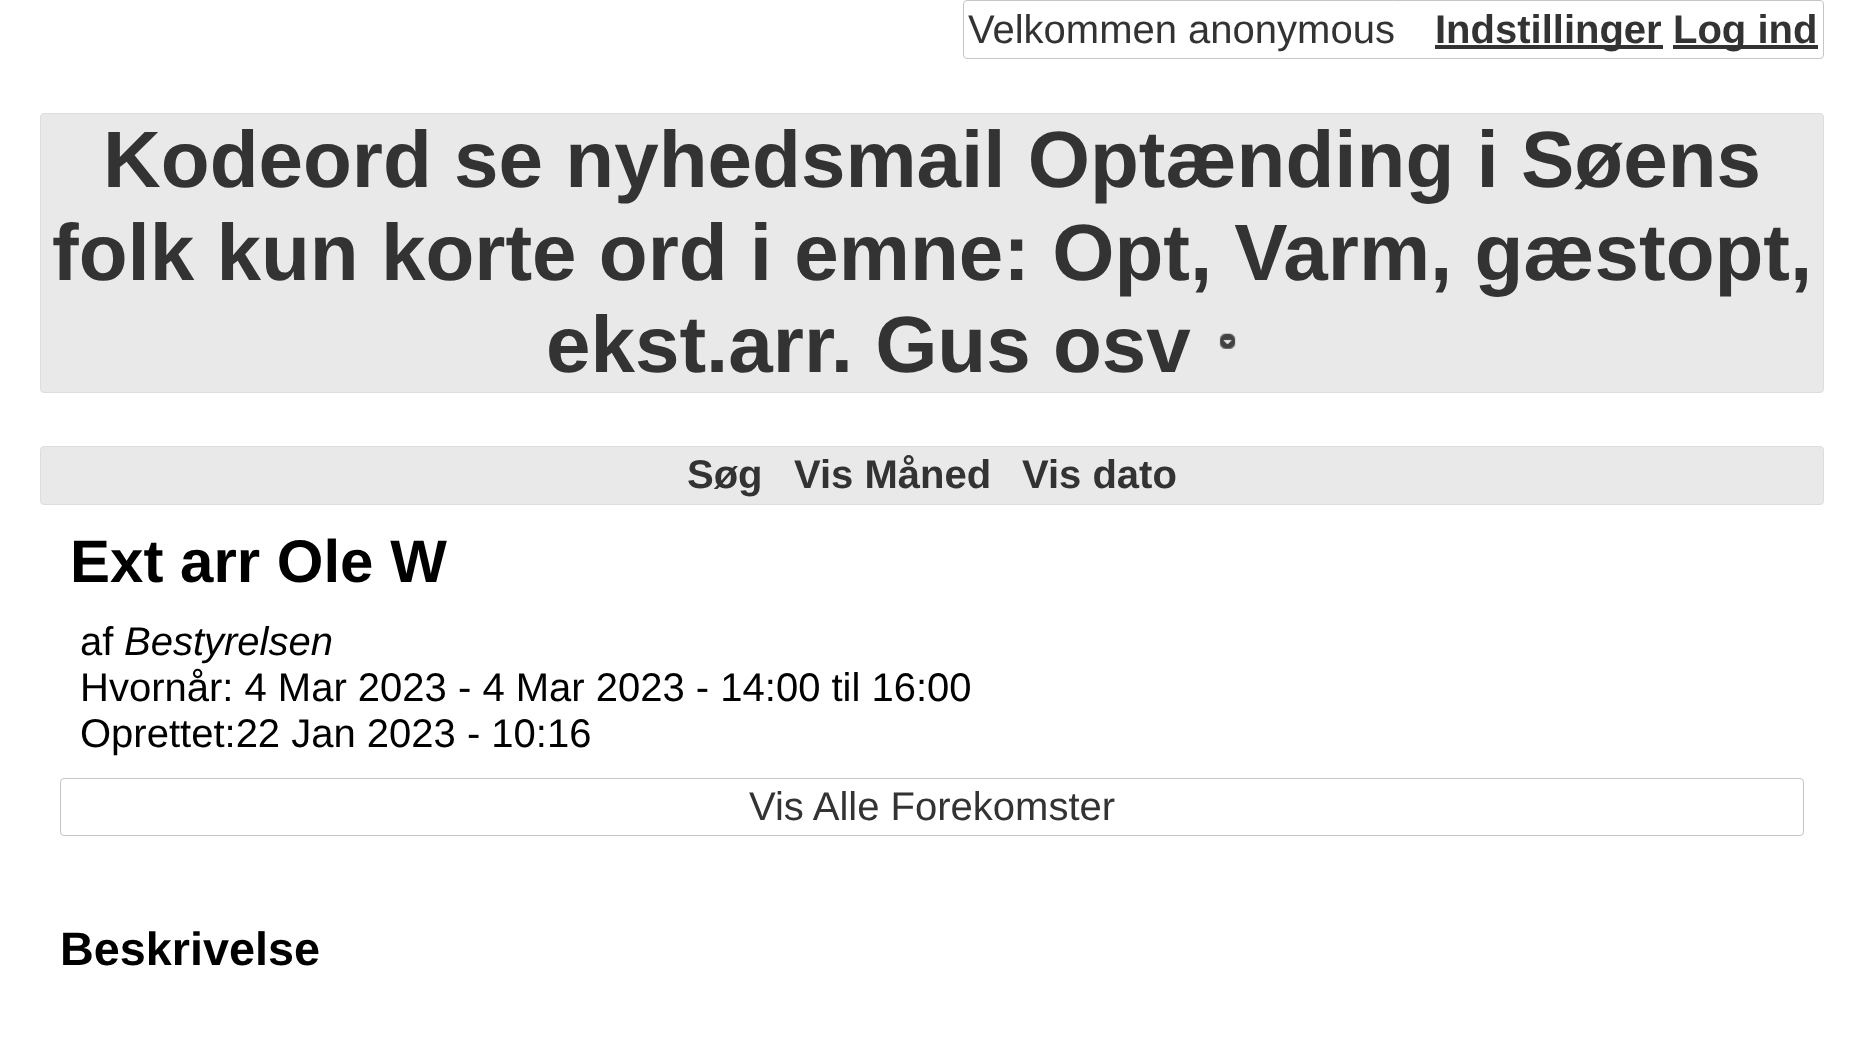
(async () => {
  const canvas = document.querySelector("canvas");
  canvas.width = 1863;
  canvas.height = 1043;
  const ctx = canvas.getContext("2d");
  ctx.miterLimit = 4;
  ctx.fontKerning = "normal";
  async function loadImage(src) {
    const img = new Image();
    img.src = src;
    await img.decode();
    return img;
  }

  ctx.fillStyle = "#ffffff";
  ctx.fillRect(0, 0, 1863, 1043);
  ctx.beginPath();
  ctx.roundRect(963.5, 0.5, 860, 58, 3.5);
  ctx.strokeStyle = "#c5c5c5";
  ctx.stroke();
  ctx.fillStyle = "#333333";
  ctx.fillRect(1435, 45, 228, 4);
  ctx.fillRect(1673, 45, 145, 4);
  ctx.fillStyle = "#e9e9e9";
  ctx.beginPath();
  ctx.roundRect(40.5, 113.5, 1783, 279, 3.5);
  ctx.fill();
  ctx.strokeStyle = "#dddddd";
  ctx.stroke();
  ctx.drawImage(await loadImage("img/1.png"), 1219, 333, 17, 16);
  ctx.beginPath();
  ctx.roundRect(40.5, 446.5, 1783, 58, 3.5);
  ctx.fill();
  ctx.stroke();
  ctx.beginPath();
  ctx.roundRect(60.5, 778.5, 1743, 57, 3.5);
  ctx.strokeStyle = "#c5c5c5";
  ctx.stroke();
  ctx.font = "40px Liberation Sans";
  ctx.fillStyle = "#333333";
  ctx.fillText("Velkommen anonymous", 968, 43);
  ctx.font = "bold 40px Liberation Sans";
  ctx.fillText("Indstillinger", 1435, 43);
  ctx.fillText("Log ind", 1673, 43);
  ctx.font = "bold 80px Liberation Sans";
  for (const [text, x, y] of [
    ["Kodeord se nyhedsmail Optænding i Søens", 103, 187],
    ["folk kun korte ord i emne: Opt, Varm, gæstopt,", 52, 280],
    ["ekst.arr. Gus osv", 546, 372],
  ]) {
    ctx.fillText(text, x, y);
  }
  ctx.font = "bold 40px Liberation Sans";
  for (const [text, x, y] of [
    ["Søg", 687, 488],
    ["Vis Måned", 794, 488],
    ["Vis dato", 1022, 488],
  ]) {
    ctx.fillText(text, x, y);
  }
  ctx.font = "bold 60px Liberation Sans";
  ctx.fillStyle = "#000000";
  ctx.fillText("Ext arr Ole W", 70, 582);
  ctx.font = "40px Liberation Sans";
  ctx.fillText("af", 80, 655);
  ctx.font = "italic 40px Liberation Sans";
  ctx.fillText("Bestyrelsen", 124, 655);
  ctx.font = "40px Liberation Sans";
  ctx.fillText("Hvornår: 4 Mar 2023 - 4 Mar 2023 - 14:00 til 16:00", 80, 701);
  ctx.fillText("Oprettet:22 Jan 2023 - 10:16", 80, 747);
  ctx.fillStyle = "#333333";
  ctx.fillText("Vis Alle Forekomster", 749, 820);
  ctx.font = "bold 46.75px Liberation Sans";
  ctx.fillStyle = "#000000";
  ctx.fillText("Beskrivelse", 60, 965);
})();
